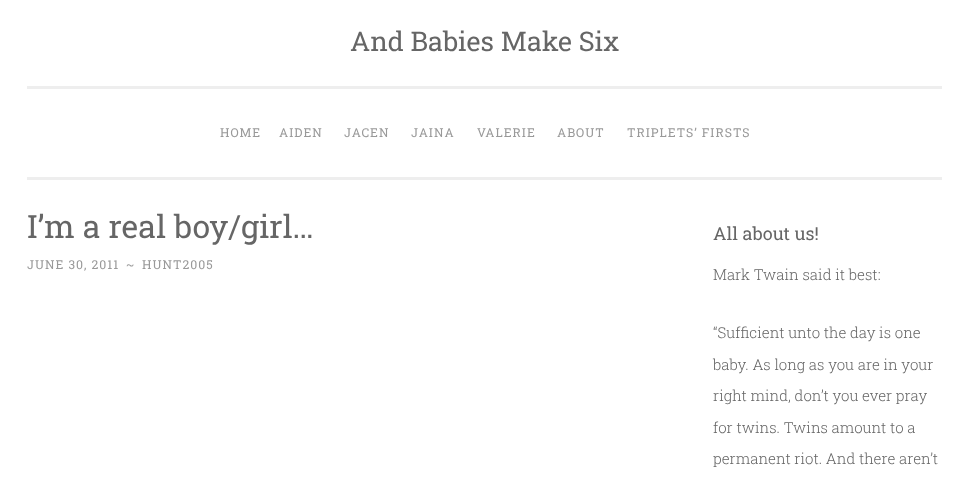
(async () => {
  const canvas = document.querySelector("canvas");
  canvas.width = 969;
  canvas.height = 486;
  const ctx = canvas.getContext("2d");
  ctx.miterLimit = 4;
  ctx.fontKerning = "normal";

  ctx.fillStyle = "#ffffff";
  ctx.fillRect(0, 0, 969, 486);
  ctx.fillStyle = "#eeeeee";
  ctx.fillRect(27, 177, 915, 3);
  ctx.fillRect(27, 86, 915, 3);
  ctx.font = "27px Roboto Slab";
  ctx.fillStyle = "#666666";
  ctx.fillText("And Babies Make Six", 350, 51);
  ctx.letterSpacing = "1px";
  ctx.font = "12.25px Roboto Slab";
  ctx.fillStyle = "#999999";
  for (const [text, x, y] of [
    ["HOME", 220, 137],
    ["AIDEN", 279, 137],
    ["JACEN", 344, 137],
    ["JAINA", 411, 137],
    ["VALERIE", 477, 137],
    ["ABOUT", 557, 137],
    ["TRIPLETS’ FIRSTS", 627, 137],
  ]) {
    ctx.fillText(text, x, y);
  }
  ctx.letterSpacing = "0px";
  ctx.font = "32px Roboto Slab";
  ctx.fillStyle = "#666666";
  ctx.fillText("I’m a real boy/girl…", 27, 238);
  ctx.letterSpacing = "1px";
  ctx.font = "12.25px Roboto Slab";
  ctx.fillStyle = "#999999";
  for (const [text, x, y] of [
    ["JUNE 30, 2011", 27, 269],
    ["~", 126, 269],
    ["HUNT2005", 142, 269],
  ]) {
    ctx.fillText(text, x, y);
  }
  ctx.letterSpacing = "0px";
  ctx.font = "18px Roboto Slab";
  ctx.fillStyle = "#666666";
  ctx.fillText("All about us!", 713, 240);
  ctx.font = "300 15px Roboto Slab";
  for (const [text, x, y] of [
    ["Mark Twain said it best:", 713, 280],
    ["“Sufficient unto the day is one", 713, 338],
    ["baby. As long as you are in your", 713, 370],
    ["right mind, don’t you ever pray", 713, 401],
    ["for twins. Twins amount to a", 713, 433],
    ["permanent riot. And there aren’t", 713, 464],
  ]) {
    ctx.fillText(text, x, y);
  }
})();
